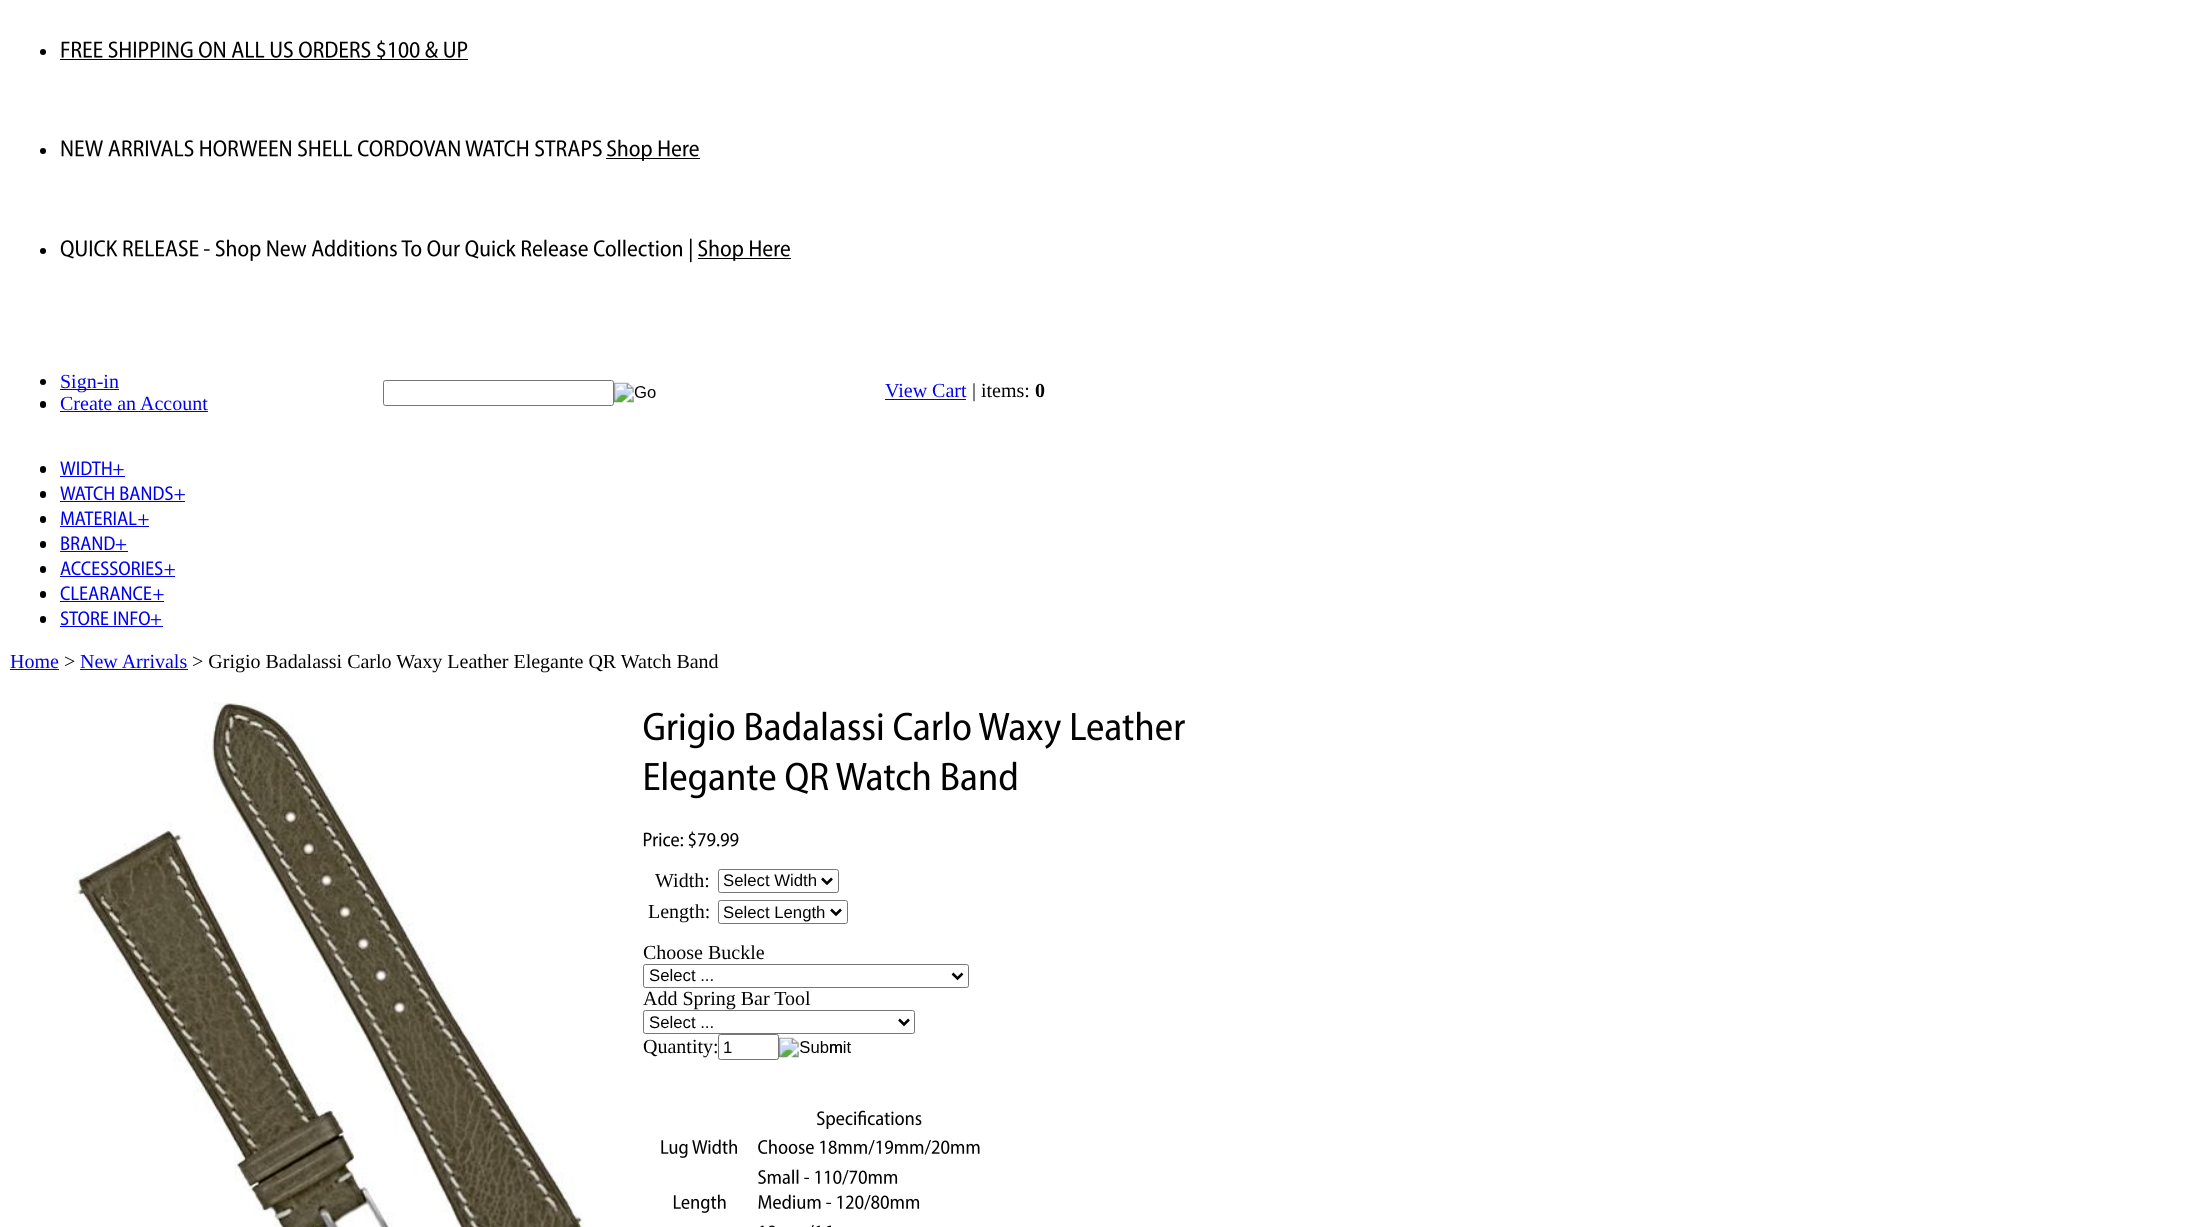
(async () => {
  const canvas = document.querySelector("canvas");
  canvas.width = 2207;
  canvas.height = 1227;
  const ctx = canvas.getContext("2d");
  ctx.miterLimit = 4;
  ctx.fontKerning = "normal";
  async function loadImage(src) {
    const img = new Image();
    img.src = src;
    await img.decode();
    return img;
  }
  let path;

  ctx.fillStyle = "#ffffff";
  ctx.fillRect(0, 0, 2207, 1227);
  ctx.fillStyle = "#000000";
  ctx.beginPath();
  ctx.arc(43, 52, 3, 0, Math.PI * 2);
  ctx.fill();
  ctx.drawImage(await loadImage("img/1.png"), 61, 40, 407, 19);
  ctx.fillRect(60, 59, 408, 1);
  ctx.beginPath();
  ctx.arc(43, 151, 3, 0, Math.PI * 2);
  ctx.fill();
  ctx.drawImage(await loadImage("img/2.png"), 61, 140, 133, 17);
  ctx.drawImage(await loadImage("img/3.png"), 200, 140, 402, 17);
  ctx.fillRect(606, 158, 94, 1);
  ctx.drawImage(await loadImage("img/4.png"), 607, 139, 92, 22);
  ctx.beginPath();
  ctx.arc(43, 251, 3, 0, Math.PI * 2);
  ctx.fill();
  ctx.drawImage(await loadImage("img/5.png"), 60, 240, 139, 19);
  ctx.drawImage(await loadImage("img/6.png"), 204, 238, 488, 25);
  ctx.fillRect(698, 258, 93, 1);
  ctx.drawImage(await loadImage("img/7.png"), 698, 239, 92, 22);
  ctx.beginPath();
  ctx.arc(43, 382, 3, 0, Math.PI * 2);
  ctx.fill();
  ctx.fillStyle = "#0000ee";
  ctx.fillRect(60, 389, 59, 1);
  ctx.fillStyle = "#000000";
  ctx.beginPath();
  ctx.roundRect(40, 401, 6, 7, 3);
  ctx.fill();
  ctx.fillStyle = "#0000ee";
  ctx.fillRect(60, 411, 148, 1);
  ctx.beginPath();
  ctx.roundRect(383.5, 380.5, 230, 25, 2);
  ctx.strokeStyle = "#767676";
  ctx.stroke();
  ctx.drawImage(await loadImage("img/8.png"), 614, 382, 42, 21);
  ctx.fillRect(885, 399, 81, 1);
  ctx.fillStyle = "#000000";
  ctx.beginPath();
  ctx.roundRect(40, 466, 6, 7, 3);
  ctx.fill();
  ctx.drawImage(await loadImage("img/9.png"), 60, 461, 52, 15);
  ctx.drawImage(await loadImage("img/10.png"), 113, 464, 11, 11);
  ctx.fillStyle = "#0000ee";
  ctx.fillRect(60, 476, 65, 1);
  ctx.fillStyle = "#000000";
  ctx.beginPath();
  ctx.roundRect(40, 491, 6, 7, 3);
  ctx.fill();
  ctx.drawImage(await loadImage("img/11.png"), 60, 486, 113, 15);
  ctx.drawImage(await loadImage("img/12.png"), 174, 489, 11, 11);
  ctx.fillStyle = "#0000ee";
  ctx.fillRect(60, 501, 125, 1);
  ctx.fillStyle = "#000000";
  ctx.beginPath();
  ctx.roundRect(40, 516, 6, 7, 3);
  ctx.fill();
  ctx.drawImage(await loadImage("img/13.png"), 61, 511, 76, 14);
  ctx.drawImage(await loadImage("img/10.png"), 138, 514, 11, 11);
  ctx.fillStyle = "#0000ee";
  ctx.fillRect(60, 526, 89, 1);
  ctx.fillStyle = "#000000";
  ctx.beginPath();
  ctx.roundRect(40, 541, 6, 7, 3);
  ctx.fill();
  ctx.drawImage(await loadImage("img/14.png"), 61, 536, 54, 15);
  ctx.drawImage(await loadImage("img/15.png"), 115, 539, 12, 11);
  ctx.fillStyle = "#0000ee";
  ctx.fillRect(60, 551, 68, 1);
  ctx.fillStyle = "#000000";
  ctx.beginPath();
  ctx.roundRect(40, 566, 6, 7, 3);
  ctx.fill();
  ctx.drawImage(await loadImage("img/16.png"), 60, 561, 103, 15);
  ctx.drawImage(await loadImage("img/12.png"), 164, 564, 11, 11);
  ctx.fillStyle = "#0000ee";
  ctx.fillRect(60, 576, 115, 1);
  ctx.fillStyle = "#000000";
  ctx.beginPath();
  ctx.roundRect(40, 591, 6, 7, 3);
  ctx.fill();
  ctx.drawImage(await loadImage("img/17.png"), 60, 586, 92, 15);
  ctx.drawImage(await loadImage("img/10.png"), 153, 589, 11, 11);
  ctx.fillStyle = "#0000ee";
  ctx.fillRect(60, 601, 104, 1);
  ctx.fillStyle = "#000000";
  ctx.beginPath();
  ctx.roundRect(40, 616, 6, 7, 3);
  ctx.fill();
  ctx.drawImage(await loadImage("img/18.png"), 60, 611, 90, 15);
  ctx.drawImage(await loadImage("img/15.png"), 150, 614, 12, 11);
  for (const [x, y, w, h, color] of [
    [60, 626, 103, 1, "#0000ee"],
    [10, 669, 49, 1, "#0000ee"],
    [80, 669, 108, 1, "#0000ee"],
  ]) {
    ctx.fillStyle = color;
    ctx.fillRect(x, y, w, h);
  }
  ctx.drawImage(await loadImage("img/19.png"), 73, 701, 511, 526);
  ctx.drawImage(await loadImage("img/20.png"), 643, 711, 542, 38);
  ctx.drawImage(await loadImage("img/21.png"), 645, 761, 372, 38);
  ctx.drawImage(await loadImage("img/22.png"), 643, 832, 40, 15);
  ctx.drawImage(await loadImage("img/23.png"), 688, 831, 51, 17);
  ctx.beginPath();
  ctx.roundRect(718.5, 869.5, 120, 23, 2);
  ctx.stroke();
  path = new Path2D("M822 878.5L827 883.5L832 878.5");
  ctx.strokeStyle = "#000000";
  ctx.lineWidth = 2.5;
  ctx.stroke(path);
  ctx.beginPath();
  ctx.roundRect(718.5, 900.5, 129, 23, 2);
  ctx.strokeStyle = "#767676";
  ctx.lineWidth = 1;
  ctx.stroke();
  path = new Path2D("M831 909.5L836 914.5L841 909.5");
  ctx.strokeStyle = "#000000";
  ctx.lineWidth = 2.5;
  ctx.stroke(path);
  ctx.beginPath();
  ctx.roundRect(643.5, 964.5, 325, 23, 2);
  ctx.strokeStyle = "#767676";
  ctx.lineWidth = 1;
  ctx.stroke();
  path = new Path2D("M952.5 973.5L957.5 978.5L962.5 973.5");
  ctx.strokeStyle = "#000000";
  ctx.lineWidth = 2.5;
  ctx.stroke(path);
  ctx.beginPath();
  ctx.roundRect(643.5, 1010.5, 271, 23, 2);
  ctx.strokeStyle = "#767676";
  ctx.lineWidth = 1;
  ctx.stroke();
  path = new Path2D("M899 1019.5L904 1024.5L909 1019.5");
  ctx.strokeStyle = "#000000";
  ctx.lineWidth = 2.5;
  ctx.stroke(path);
  ctx.beginPath();
  ctx.roundRect(718.5, 1034.5, 60, 25, 2);
  ctx.strokeStyle = "#767676";
  ctx.lineWidth = 1;
  ctx.stroke();
  ctx.drawImage(await loadImage("img/24.png"), 779, 1037, 72, 21);
  ctx.drawImage(await loadImage("img/25.png"), 817, 1110, 105, 19);
  ctx.drawImage(await loadImage("img/26.png"), 661, 1139, 76, 19);
  ctx.drawImage(await loadImage("img/27.png"), 758, 1139, 222, 16);
  ctx.drawImage(await loadImage("img/28.png"), 673, 1194, 53, 19);
  ctx.drawImage(await loadImage("img/29.png"), 758, 1169, 140, 16);
  ctx.drawImage(await loadImage("img/30.png"), 758, 1194, 162, 16);
  ctx.drawImage(await loadImage("img/31.png"), 760, 1225, 71, 2);
  ctx.font = "20px Liberation Serif";
  for (const [text, x, y] of [
    ["Sign-in", 60, 388],
    ["Create an Account", 60, 410],
    ["View Cart", 885, 397],
  ]) {
    ctx.fillText(text, x, y);
  }
  ctx.fillStyle = "#000000";
  ctx.fillText("| items:", 972, 397);
  ctx.font = "bold 20px Liberation Serif";
  ctx.fillText("0", 1035, 397);
  ctx.font = "20px Liberation Serif";
  ctx.fillStyle = "#0000ee";
  ctx.fillText("Home", 10, 668);
  ctx.fillStyle = "#000000";
  ctx.fillText(">", 64, 668);
  ctx.fillStyle = "#0000ee";
  ctx.fillText("New Arrivals", 80, 668);
  ctx.fillStyle = "#000000";
  ctx.fillText("> Grigio Badalassi Carlo Waxy Leather Elegante QR Watch Band", 192, 668);
  ctx.fillText("Width:", 655, 887);
  ctx.font = "16.75px Liberation Sans";
  ctx.fillText("Select Width", 723, 886);
  ctx.font = "20px Liberation Serif";
  ctx.fillText("Length:", 648, 918);
  ctx.font = "16.75px Liberation Sans";
  ctx.fillText("Select Length", 723, 918);
  ctx.font = "20px Liberation Serif";
  ctx.fillText("Choose Buckle", 643, 959);
  ctx.font = "16.75px Liberation Sans";
  ctx.fillText("Select ...", 649, 981);
  ctx.font = "20px Liberation Serif";
  ctx.fillText("Add Spring Bar Tool", 643, 1005);
  ctx.font = "16.75px Liberation Sans";
  ctx.fillText("Select ...", 649, 1028);
  ctx.font = "20px Liberation Serif";
  ctx.fillText("Quantity:", 643, 1053);
  ctx.font = "16.75px Liberation Sans";
  ctx.fillText("1", 723, 1053);
  ctx.fillText("m", 829, 1053);
})();
